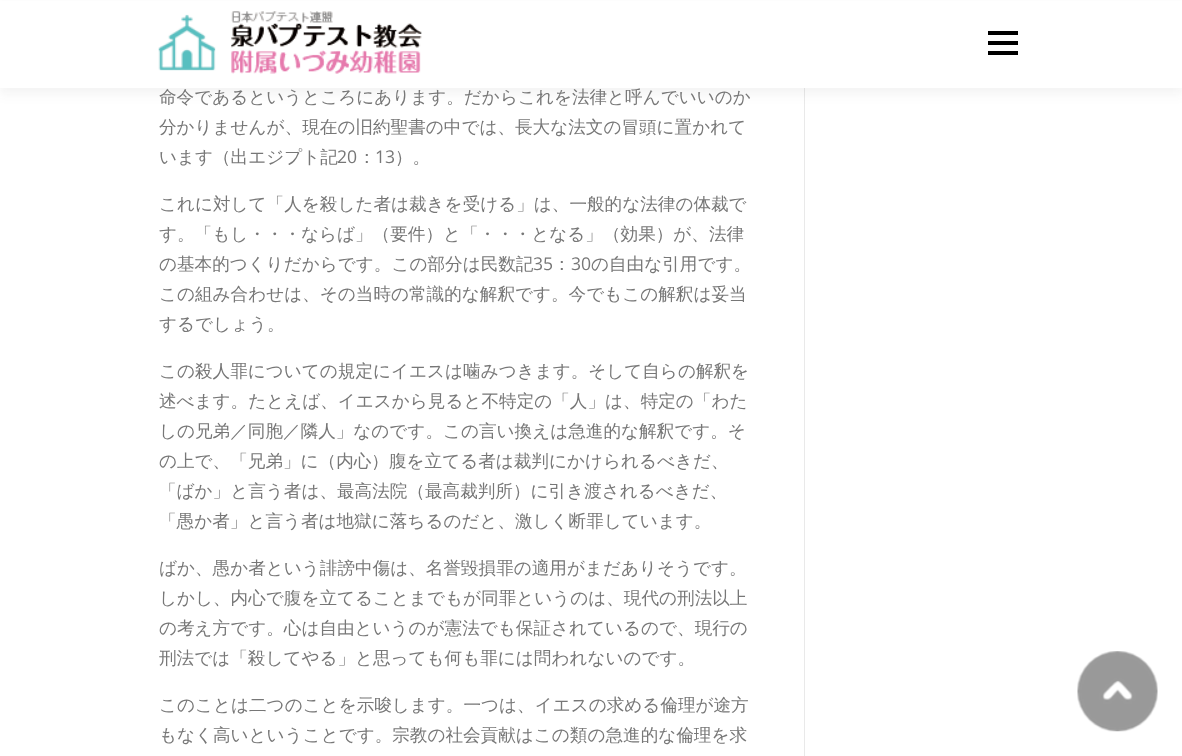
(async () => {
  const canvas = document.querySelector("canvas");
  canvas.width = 1182;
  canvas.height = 756;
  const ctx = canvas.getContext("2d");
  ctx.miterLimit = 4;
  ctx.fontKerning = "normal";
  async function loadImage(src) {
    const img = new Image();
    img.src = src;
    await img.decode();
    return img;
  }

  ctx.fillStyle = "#ffffff";
  ctx.fillRect(0, 0, 1182, 756);
  ctx.fillStyle = "#e9e9e9";
  ctx.fillRect(804, 88, 1, 668);
  ctx.fillStyle = "rgba(50, 50, 50, 0.06)";
  ctx.filter = "blur(6px)";
  ctx.beginPath();
  ctx.rect(0, 6, 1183, 88);
  ctx.fill();
  ctx.filter = "none";
  ctx.fillStyle = "#ffffff";
  ctx.fillRect(0, 1, 1182, 87);
  ctx.drawImage(await loadImage("img/1.png"), 158, 11, 264, 63);
  for (const [x, y, w, h, color] of [
    [988, 41, 30, 4, "#000000"],
    [988, 31, 30, 4, "#000000"],
    [988, 51, 30, 4, "#000000"],
  ]) {
    ctx.fillStyle = color;
    ctx.fillRect(x, y, w, h);
  }
  ctx.drawImage(await loadImage("img/2.png"), 1077, 651, 81, 81);
  ctx.font = "500 17.6px WenQuanYi Zen Hei";
  ctx.fillStyle = "#777777";
  for (const [text, x, y] of [
    ["命令であるというところにあります。だからこれを法律と呼んでいいのか", 159, 103],
    ["分かりませんが、現在の旧約聖書の中では、長大な法文の冒頭に置かれて", 159, 133],
    ["います（出エジプト記", 159, 163],
  ]) {
    ctx.fillText(text, x, y);
  }
  ctx.font = "17.6px Open Sans";
  ctx.fillText("20", 337, 163);
  ctx.font = "500 17.6px WenQuanYi Zen Hei";
  ctx.fillText("：", 358, 163);
  ctx.font = "17.6px Open Sans";
  ctx.fillText("13", 375, 163);
  ctx.font = "500 17.6px WenQuanYi Zen Hei";
  for (const [text, x, y] of [
    ["）。", 395, 163],
    ["これに対して「人を殺した者は裁きを受ける」は、一般的な法律の体裁で", 159, 210],
    ["す。「もし・・・ならば」（要件）と「・・・となる」（効果）が、法律", 159, 240],
    ["の基本的つくりだからです。この部分は民数記", 159, 270],
  ]) {
    ctx.fillText(text, x, y);
  }
  ctx.font = "17.6px Open Sans";
  ctx.fillText("35", 533, 270);
  ctx.font = "500 17.6px WenQuanYi Zen Hei";
  ctx.fillText("：", 553, 270);
  ctx.font = "17.6px Open Sans";
  ctx.fillText("30", 571, 270);
  ctx.font = "500 17.6px WenQuanYi Zen Hei";
  for (const [text, x, y] of [
    ["の自由な引用です。", 591, 270],
    ["この組み合わせは、その当時の常識的な解釈です。今でもこの解釈は妥当", 159, 300],
    ["するでしょう。", 159, 330],
    ["この殺人罪についての規定にイエスは噛みつきます。そして自らの解釈を", 159, 377],
    ["述べます。たとえば、イエスから見ると不特定の「人」は、特定の「わた", 159, 407],
    ["しの兄弟／同胞／隣人」なのです。この言い換えは急進的な解釈です。そ", 159, 437],
    ["の上で、「兄弟」に（内心）腹を立てる者は裁判にかけられるべきだ、", 159, 467],
    ["「ばか」と言う者は、最高法院（最高裁判所）に引き渡されるべきだ、", 159, 497],
    ["「愚か者」と言う者は地獄に落ちるのだと、激しく断罪しています。", 159, 527],
    ["ばか、愚か者という誹謗中傷は、名誉毀損罪の適用がまだありそうです。", 159, 574],
    ["しかし、内心で腹を立てることまでもが同罪というのは、現代の刑法以上", 159, 604],
    ["の考え方です。心は自由というのが憲法でも保証されているので、現行の", 159, 634],
    ["刑法では「殺してやる」と思っても何も罪には問われないのです。", 159, 664],
    ["このことは二つのことを示唆します。一つは、イエスの求める倫理が途方", 159, 711],
    ["もなく高いということです。宗教の社会貢献はこの類の急進的な倫理を求", 159, 741],
  ]) {
    ctx.fillText(text, x, y);
  }
})();
